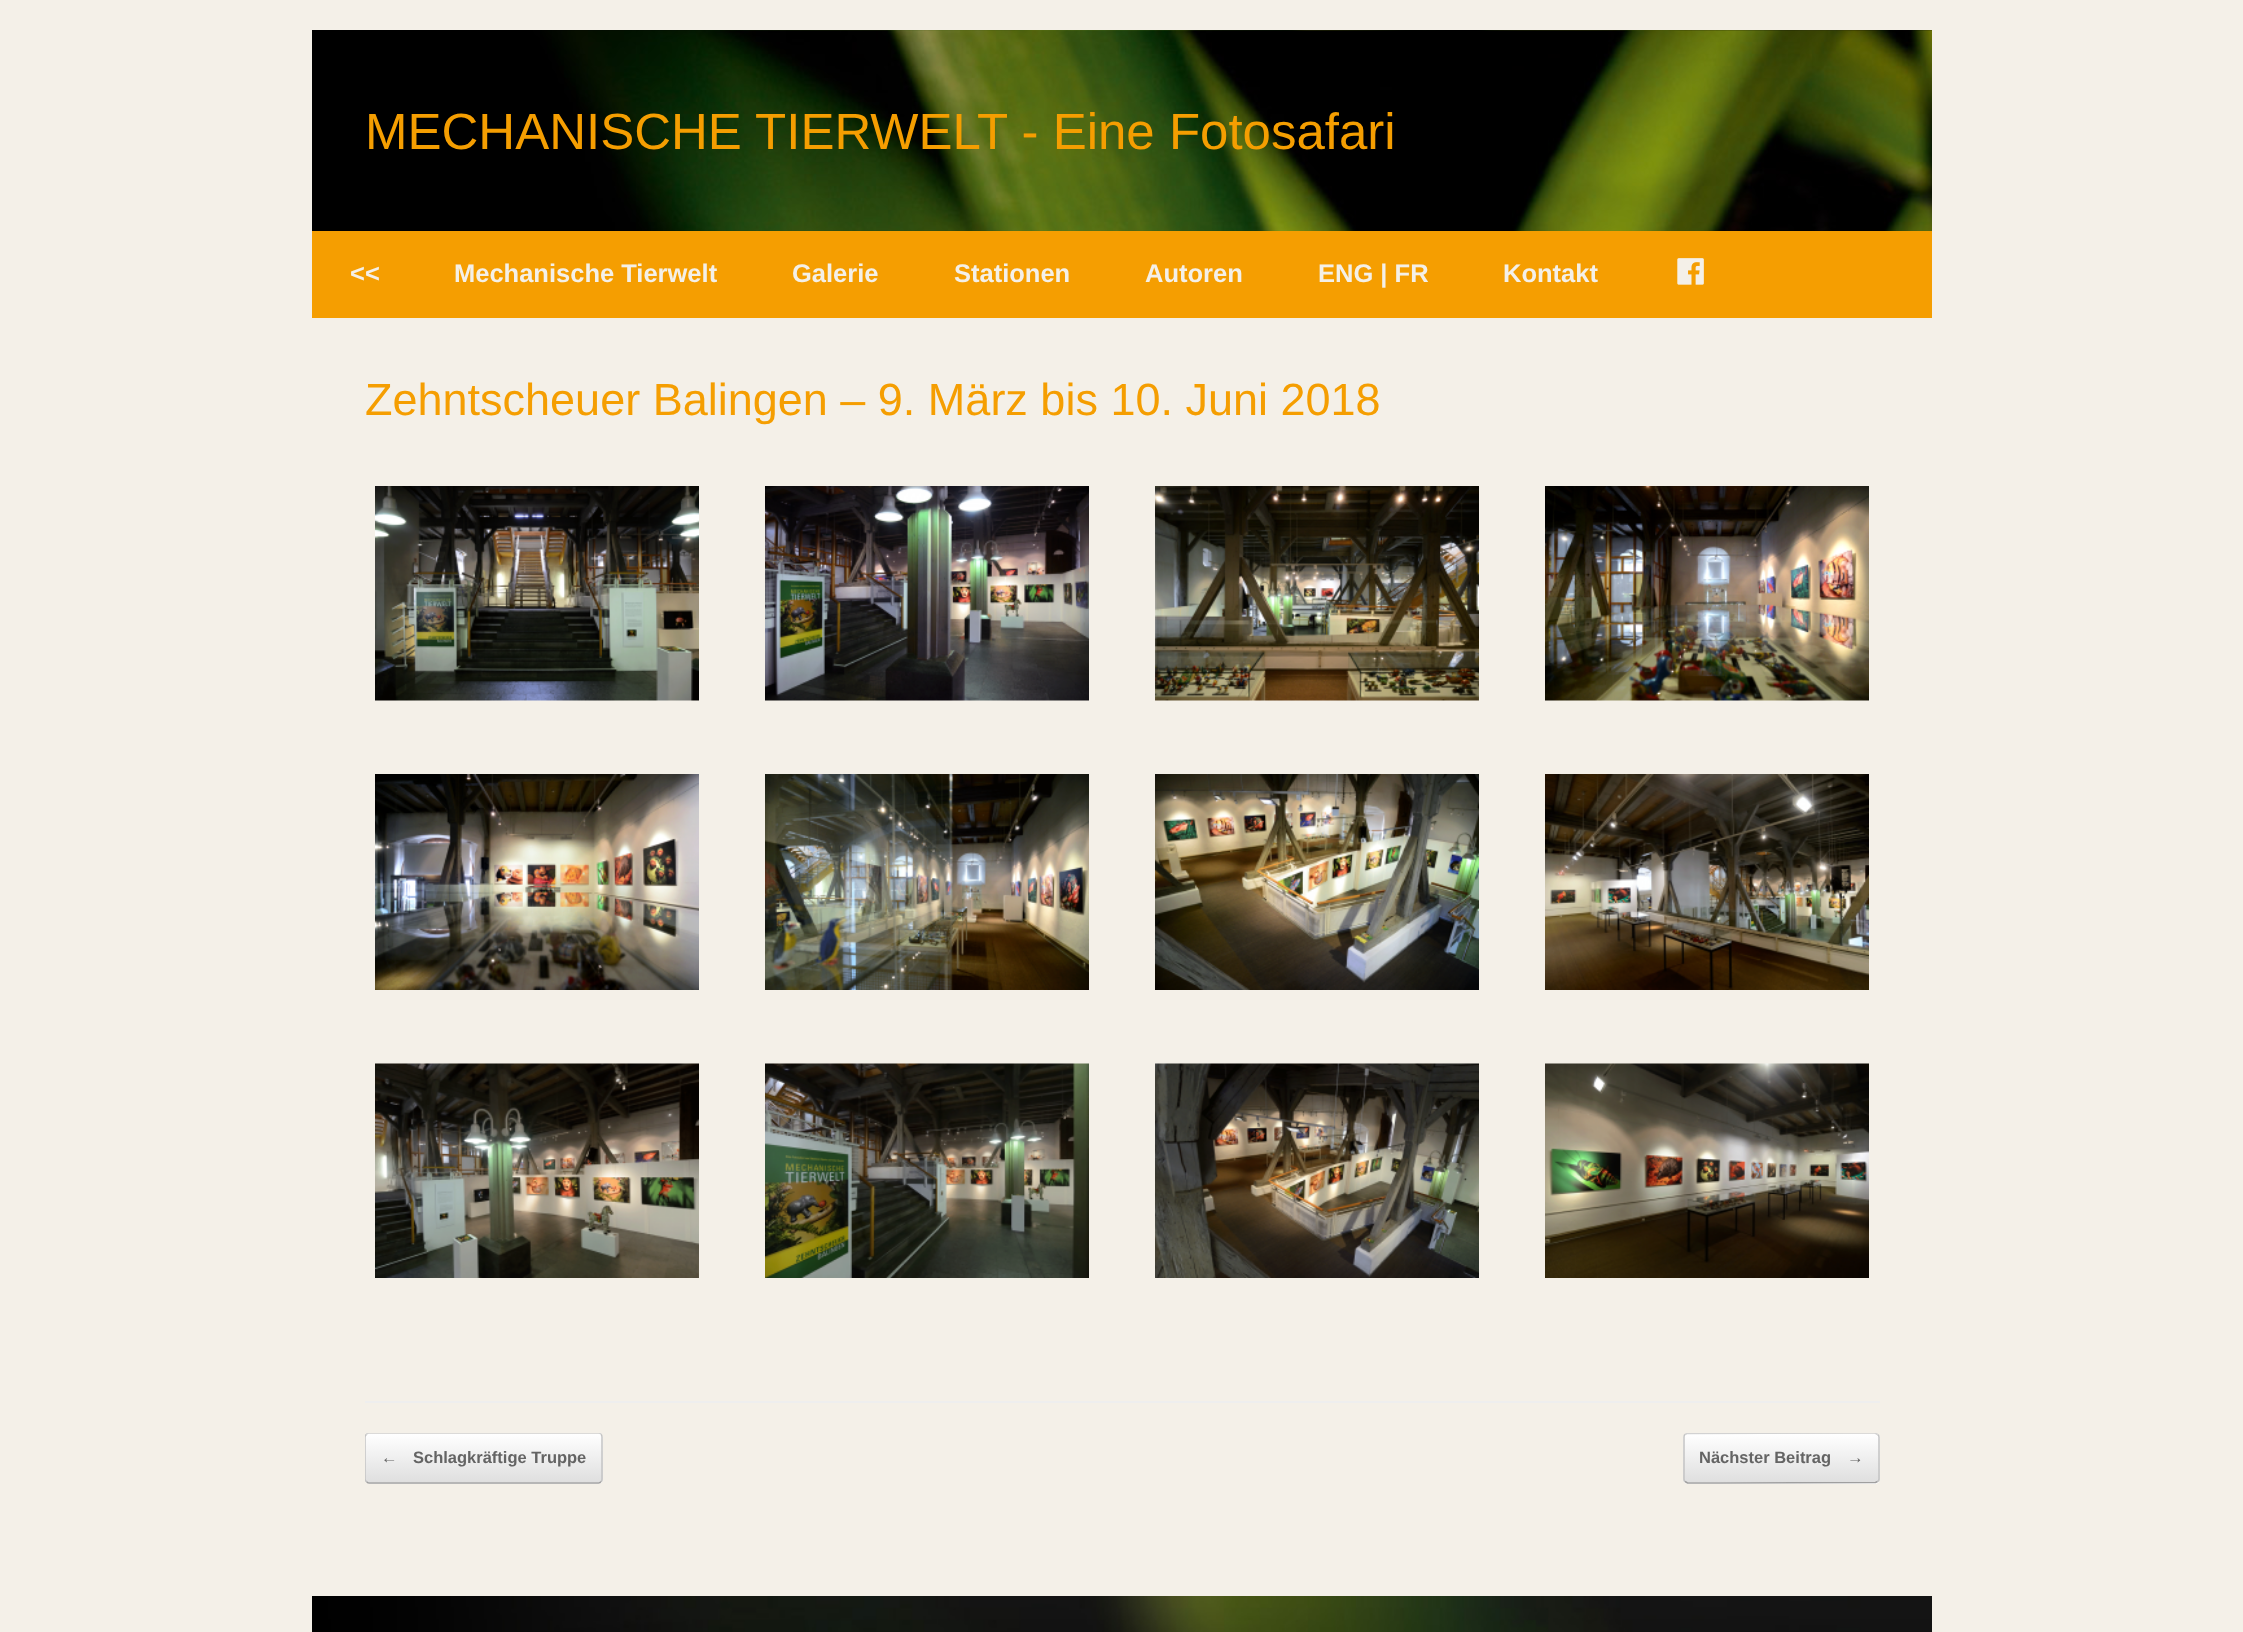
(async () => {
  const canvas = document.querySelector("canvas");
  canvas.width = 2243;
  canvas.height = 1632;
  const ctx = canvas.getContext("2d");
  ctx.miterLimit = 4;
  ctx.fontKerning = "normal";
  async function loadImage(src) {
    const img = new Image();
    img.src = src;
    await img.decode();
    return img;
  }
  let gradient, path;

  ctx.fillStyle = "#f4f0e8";
  ctx.fillRect(0, 0, 2243, 1632);
  ctx.drawImage(await loadImage("img/1.png"), 312, 30, 1620, 201);
  ctx.fillStyle = "#f59e01";
  ctx.fillRect(312, 231, 1620, 87);
  ctx.drawImage(await loadImage("img/2.png"), 1677, 258, 27, 27);
  ctx.fillStyle = "#eeeeee";
  ctx.fillRect(365, 1401, 1515, 2);
  ctx.drawImage(await loadImage("img/3.png"), 375, 486, 324, 215);
  ctx.drawImage(await loadImage("img/4.png"), 765, 486, 324, 215);
  ctx.drawImage(await loadImage("img/5.png"), 1155, 486, 324, 215);
  ctx.drawImage(await loadImage("img/6.png"), 1545, 486, 324, 215);
  ctx.drawImage(await loadImage("img/7.png"), 375, 774, 324, 216);
  ctx.drawImage(await loadImage("img/8.png"), 765, 774, 324, 216);
  ctx.drawImage(await loadImage("img/9.png"), 1155, 774, 324, 216);
  ctx.drawImage(await loadImage("img/10.png"), 1545, 774, 324, 216);
  ctx.drawImage(await loadImage("img/11.png"), 375, 1063, 324, 215);
  ctx.drawImage(await loadImage("img/12.png"), 765, 1063, 324, 215);
  ctx.drawImage(await loadImage("img/13.png"), 1155, 1063, 324, 215);
  ctx.drawImage(await loadImage("img/14.png"), 1545, 1063, 324, 215);
  ctx.save();
  ctx.beginPath();
  ctx.roundRect(365, 1433, 238, 51, 5);
  ctx.clip();
  gradient = ctx.createLinearGradient(366, 1482, 366, 1434);
  gradient.addColorStop(0, "#dfdfdf");
  gradient.addColorStop(1, "#ffffff");
  ctx.fillStyle = gradient;
  ctx.fillRect(365, 1434, 238, 48);
  gradient = ctx.createLinearGradient(366, 1530, 366, 1482);
  gradient.addColorStop(0, "#dfdfdf");
  gradient.addColorStop(1, "#ffffff");
  ctx.fillStyle = gradient;
  ctx.fillRect(365, 1482, 238, 2);
  ctx.restore();
  ctx.save();
  ctx.beginPath();
  ctx.rect(365, 1433, 1515, 51);
  ctx.clip();
  path = new Path2D("M366.5 1434.5C367 1433.5 368 1433 369 1433H598.5C599.5 1433 600.5 1433.5 601 1434.5");
  ctx.strokeStyle = "#d2d2d2";
  ctx.lineWidth = 1.5;
  ctx.stroke(path);
  ctx.restore();
  path = new Path2D("M601 1434.5C602 1435 602 1436 602 1437V1479C602 1480 602 1481 601 1481.5");
  ctx.strokeStyle = "#c3c3c3";
  ctx.lineWidth = 1.5;
  ctx.stroke(path);
  path = new Path2D("M601 1481.5C600.5 1482.5 599.5 1483 598.5 1483H369C368 1483 367 1482.5 366.5 1481.5");
  ctx.strokeStyle = "#9f9f9f";
  ctx.stroke(path);
  ctx.save();
  ctx.beginPath();
  ctx.rect(365, 1433, 1515, 51);
  ctx.clip();
  path = new Path2D("M366.5 1481.5C365.5 1481 365 1480 365 1479V1437C365 1436 365.5 1435 366.5 1434.5");
  ctx.strokeStyle = "#c3c3c3";
  ctx.stroke(path);
  ctx.restore();
  ctx.save();
  ctx.beginPath();
  ctx.roundRect(1683, 1433, 197, 51, 5);
  ctx.clip();
  gradient = ctx.createLinearGradient(1685, 1482, 1685, 1434);
  gradient.addColorStop(0, "#dfdfdf");
  gradient.addColorStop(1, "#ffffff");
  ctx.fillStyle = gradient;
  ctx.fillRect(1683, 1434, 197, 48);
  gradient = ctx.createLinearGradient(1685, 1530, 1685, 1482);
  gradient.addColorStop(0, "#dfdfdf");
  gradient.addColorStop(1, "#ffffff");
  ctx.fillStyle = gradient;
  ctx.fillRect(1683, 1482, 197, 2);
  ctx.restore();
  ctx.save();
  ctx.beginPath();
  ctx.rect(365, 1433, 1515, 51);
  ctx.clip();
  path = new Path2D("M1685 1434.5L1687 1433.5L1844 1433H1875L1877.5 1434.5");
  ctx.strokeStyle = "#d2d2d2";
  ctx.stroke(path);
  ctx.restore();
  path = new Path2D("M1877.5 1434.5C1878.5 1435 1879 1436 1879 1437V1479C1879 1480 1878.5 1481 1877.5 1481.5");
  ctx.strokeStyle = "#c3c3c3";
  ctx.stroke(path);
  path = new Path2D("M1877.5 1481.5L1875.5 1482.5L1719 1483H1687.5L1685 1481.5");
  ctx.strokeStyle = "#9f9f9f";
  ctx.stroke(path);
  path = new Path2D("M1685 1481.5C1684 1481 1684 1480 1684 1479V1437C1684 1436 1684 1435 1685 1434.5");
  ctx.strokeStyle = "#c3c3c3";
  ctx.stroke(path);
  ctx.drawImage(await loadImage("img/15.png"), 312, 1596, 1620, 36);
  ctx.font = "51px Liberation Sans";
  ctx.fillStyle = "#f59e01";
  ctx.fillText("MECHANISCHE TIERWELT - Eine Fotosafari", 365, 149);
  ctx.font = "bold 25.5px Liberation Sans";
  ctx.fillStyle = "#f4f0e8";
  for (const [text, x, y] of [
    ["<<", 350, 282],
    ["Mechanische Tierwelt", 454, 282],
    ["Galerie", 792, 282],
    ["Stationen", 954, 282],
    ["Autoren", 1145, 282],
    ["ENG | FR", 1318, 282],
    ["Kontakt", 1503, 282],
  ]) {
    ctx.fillText(text, x, y);
  }
  ctx.font = "45px Liberation Sans";
  ctx.fillStyle = "#f59e01";
  ctx.fillText("Zehntscheuer Balingen – 9. März bis 10. Juni 2018", 365, 415);
  ctx.font = "bold 16.5px Liberation Sans";
  ctx.fillStyle = "#646464";
  for (const [text, x, y] of [
    ["←", 381, 1463],
    ["Schlagkräftige Truppe", 413, 1463],
    ["Nächster Beitrag", 1699, 1463],
    ["→", 1847, 1463],
  ]) {
    ctx.fillText(text, x, y);
  }
})();
